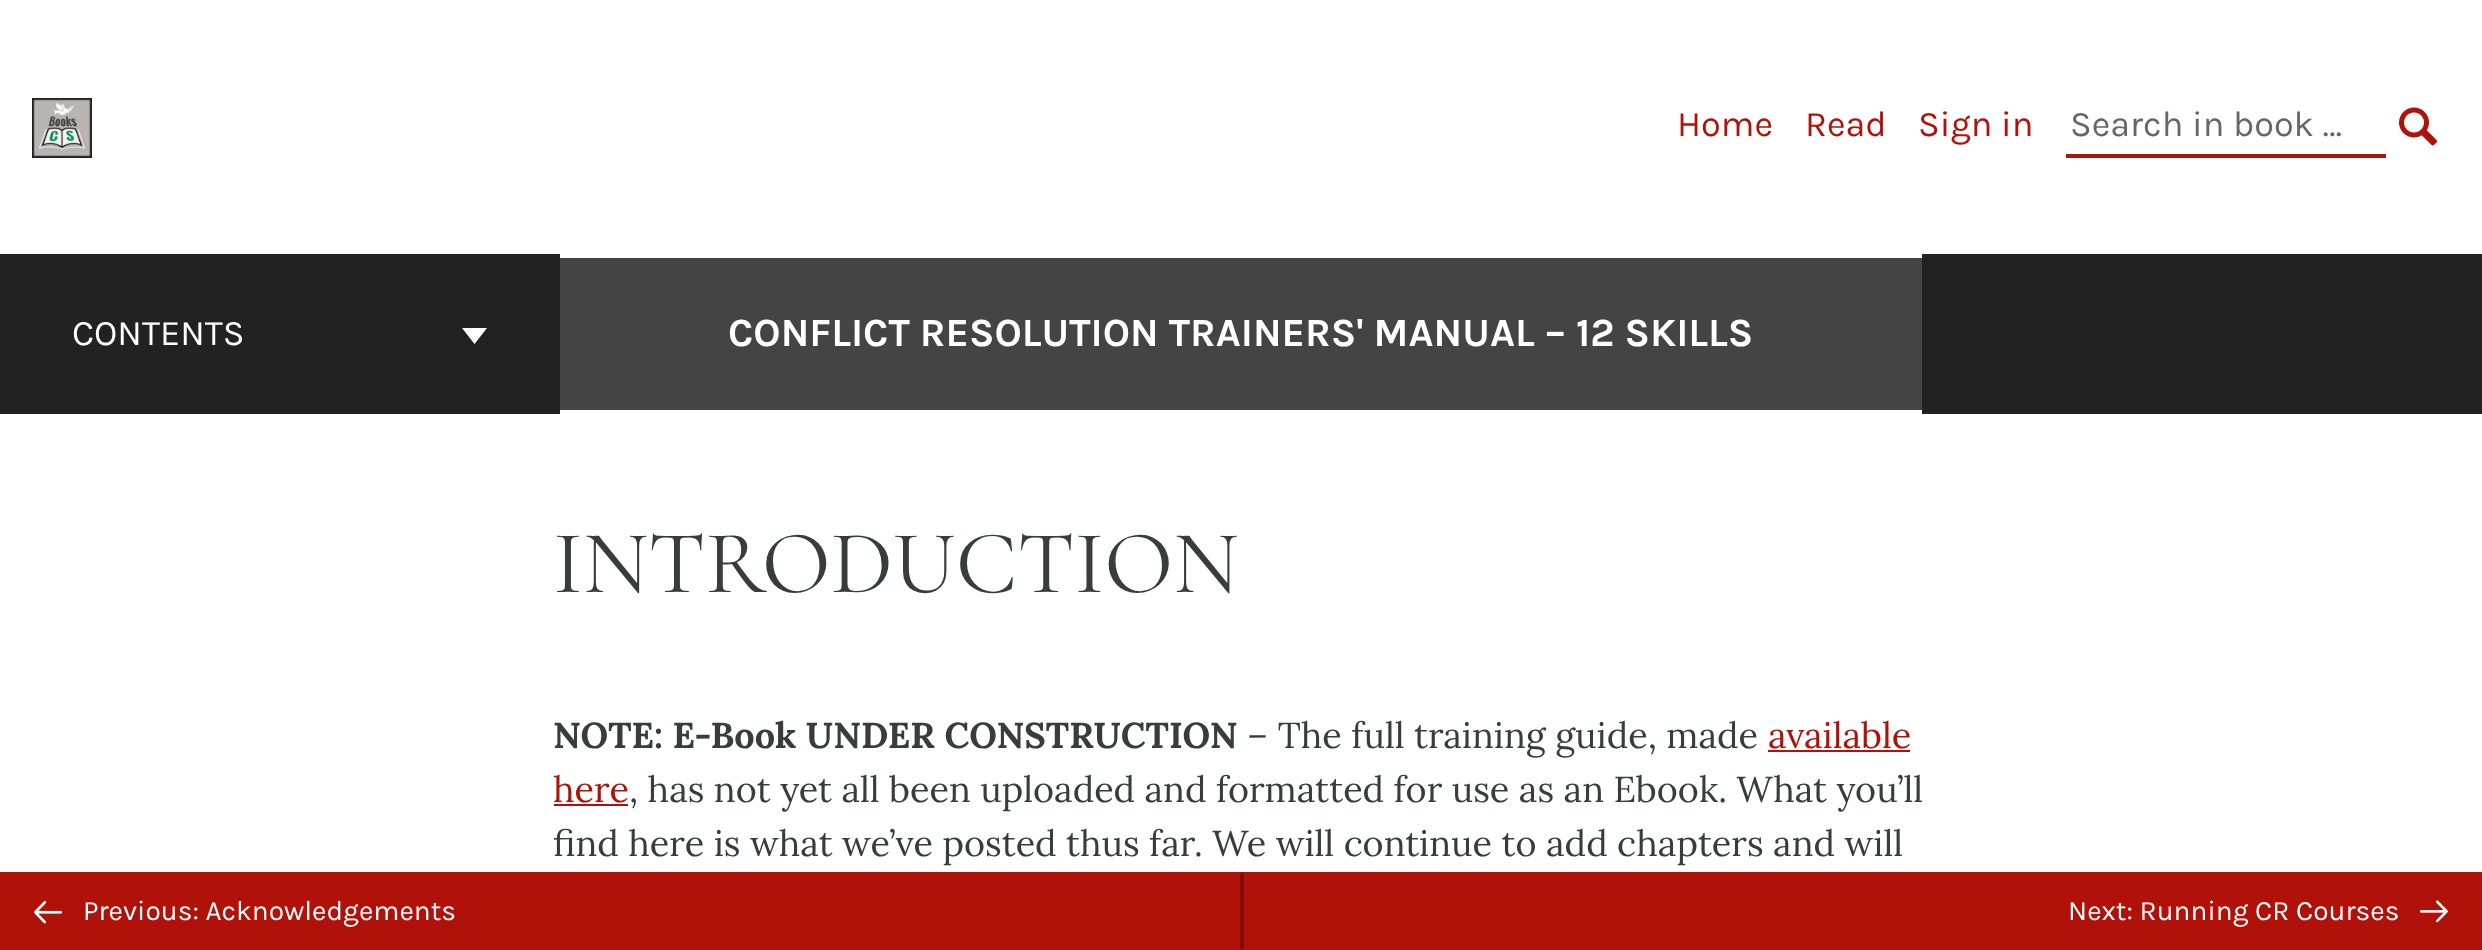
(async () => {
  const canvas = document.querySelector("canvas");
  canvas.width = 2482;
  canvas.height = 950;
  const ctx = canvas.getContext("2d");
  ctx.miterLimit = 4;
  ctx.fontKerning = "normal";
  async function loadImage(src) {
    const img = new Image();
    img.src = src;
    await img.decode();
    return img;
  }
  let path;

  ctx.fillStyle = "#ffffff";
  ctx.fillRect(0, 0, 2482, 950);
  ctx.drawImage(await loadImage("img/1.png"), 32, 98, 60, 60);
  ctx.fillStyle = "#b01109";
  ctx.fillRect(2066, 154, 320, 4);
  ctx.drawImage(await loadImage("img/2.png"), 2399, 107, 38, 39);
  ctx.fillStyle = "#222222";
  ctx.fillRect(0, 254, 2482, 160);
  ctx.fillStyle = "#ffffff";
  path = new Path2D("M474.5 344L462 328H487Z");
  ctx.fill(path, "evenodd");
  for (const [x, y, w, h, color] of [
    [560, 258, 1362, 152, "#444444"],
    [560, 254, 1362, 4, "#ffffff"],
    [560, 410, 1362, 4, "#ffffff"],
    [1768, 750, 142, 2, "#b01109"],
    [554, 804, 74, 2, "#b01109"],
    [0, 872, 2482, 78, "#b01109"],
  ]) {
    ctx.fillStyle = color;
    ctx.fillRect(x, y, w, h);
  }
  ctx.fillStyle = "#7f0c07";
  path = new Path2D("M1242 872V950L1240 948V874Z");
  ctx.fill(path);
  ctx.drawImage(await loadImage("img/3.png"), 34, 901, 28, 23);
  path = new Path2D("M1242 950V872L1244 874V948Z");
  ctx.fill(path);
  ctx.drawImage(await loadImage("img/4.png"), 2420, 900, 28, 23);
  ctx.font = "36px Karla";
  ctx.fillStyle = "#b01109";
  for (const [text, x, y] of [
    ["Home", 1677, 136],
    ["Read", 1805, 136],
    ["Sign in", 1918, 136],
  ]) {
    ctx.fillText(text, x, y);
  }
  ctx.fillStyle = "#666666";
  ctx.fillText("Search in book …", 2070, 136);
  ctx.fillStyle = "#ffffff";
  ctx.fillText("CONTENTS", 72, 345);
  ctx.font = "bold 40px Karla";
  ctx.fillText("CONFLICT RESOLUTION TRAINERS' MANUAL – 12 SKILLS", 728, 346);
  ctx.font = "90px Cormorant Garamond";
  ctx.fillStyle = "#373d3f";
  ctx.fillText("INTRODUCTION", 553, 592);
  ctx.font = "bold 36px Lora";
  ctx.fillText("NOTE: E-Book UNDER CONSTRUCTION", 553, 748);
  ctx.font = "36px Lora";
  ctx.fillText("– The full training guide, made", 1247, 748);
  ctx.fillStyle = "#b01109";
  ctx.fillText("available", 1768, 748);
  ctx.fillText("here", 553, 802);
  ctx.fillStyle = "#373d3f";
  ctx.fillText(", has not yet all been uploaded and formatted for use as an Ebook. What you’ll", 629, 802);
  ctx.fillText("find here is what we’ve posted thus far. We will continue to add chapters and will", 553, 856);
  ctx.font = "28px Karla";
  ctx.fillStyle = "#ffffff";
  ctx.fillText("Previous: Acknowledgements", 83, 920);
  ctx.fillText("Next: Running CR Courses", 2068, 920);
})();
